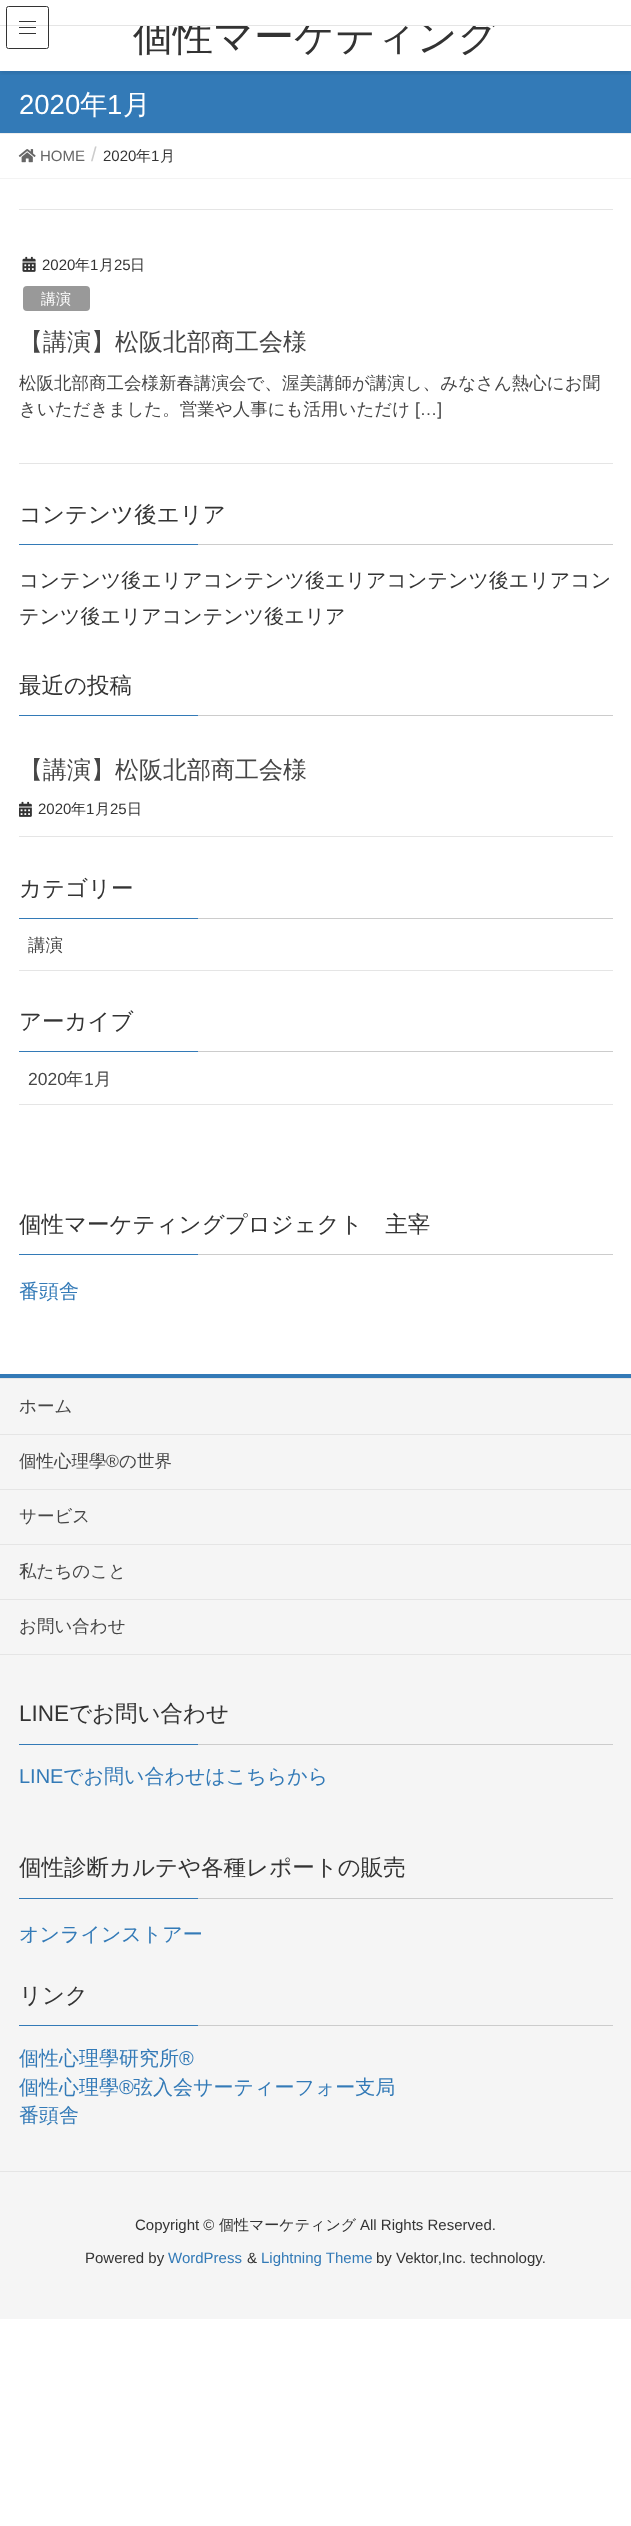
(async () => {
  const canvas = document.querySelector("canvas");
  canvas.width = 631;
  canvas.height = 2526;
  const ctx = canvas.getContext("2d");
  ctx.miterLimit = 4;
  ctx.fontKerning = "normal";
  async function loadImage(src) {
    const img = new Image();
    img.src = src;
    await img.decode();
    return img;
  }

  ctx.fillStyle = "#ffffff";
  ctx.fillRect(0, 0, 631, 2526);
  ctx.fillStyle = "#337ab7";
  ctx.fillRect(0, 71, 631, 62);
  ctx.save();
  ctx.beginPath();
  ctx.rect(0, 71, 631, 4);
  ctx.clip();
  ctx.fillStyle = "rgba(0, 0, 0, 0.1)";
  ctx.filter = "blur(2px)";
  ctx.beginPath();
  ctx.rect(0, 1, 631, 72);
  ctx.fill();
  ctx.filter = "none";
  ctx.restore();
  for (const [x, y, w, h, color] of [
    [19, 21, 17, 1, "#333333"],
    [19, 27, 17, 1, "#333333"],
    [19, 33, 17, 1, "#333333"],
    [0, 133, 631, 1, "#eeeeee"],
    [0, 178, 631, 1, "#f3f3f3"],
  ]) {
    ctx.fillStyle = color;
    ctx.fillRect(x, y, w, h);
  }
  ctx.drawImage(await loadImage("img/1.png"), 18, 149, 18, 14);
  ctx.fillStyle = "#e5e5e5";
  ctx.fillRect(19, 209, 594, 1);
  ctx.fillRect(19, 463, 594, 1);
  ctx.drawImage(await loadImage("img/2.png"), 22, 256, 14, 16);
  ctx.fillStyle = "#999999";
  ctx.beginPath();
  ctx.roundRect(23, 286, 67, 25, 4);
  ctx.fill();
  for (const [x, y, w, h, color] of [
    [198, 544, 415, 1, "#cccccc"],
    [19, 544, 179, 1, "#337ab7"],
    [198, 715, 415, 1, "#cccccc"],
    [19, 715, 179, 1, "#337ab7"],
    [19, 836, 594, 1, "#e5e5e5"],
  ]) {
    ctx.fillStyle = color;
    ctx.fillRect(x, y, w, h);
  }
  ctx.drawImage(await loadImage("img/3.png"), 19, 801, 13, 16);
  for (const [x, y, w, h, color] of [
    [198, 918, 415, 1, "#cccccc"],
    [19, 918, 179, 1, "#337ab7"],
    [19, 970, 594, 1, "#e5e5e5"],
    [198, 1051, 415, 1, "#cccccc"],
    [19, 1051, 179, 1, "#337ab7"],
    [19, 1104, 594, 1, "#e5e5e5"],
    [198, 1254, 415, 1, "#cccccc"],
    [19, 1254, 179, 1, "#337ab7"],
    [0, 1379, 631, 940, "#f5f5f5"],
    [0, 1374, 631, 4, "#337ab7"],
    [0, 1378, 631, 1, "#e5e5e5"],
    [0, 1654, 631, 1, "#e5e5e5"],
    [0, 1434, 631, 1, "#e5e5e5"],
    [0, 1489, 631, 1, "#e5e5e5"],
    [0, 1544, 631, 1, "#e5e5e5"],
    [0, 1599, 631, 1, "#e5e5e5"],
    [198, 1744, 415, 1, "#cccccc"],
    [19, 1744, 179, 1, "#337ab7"],
    [198, 1898, 415, 1, "#cccccc"],
    [19, 1898, 179, 1, "#337ab7"],
    [198, 2025, 415, 1, "#cccccc"],
    [19, 2025, 179, 1, "#337ab7"],
    [0, 2171, 631, 1, "#e5e5e5"],
  ]) {
    ctx.fillStyle = color;
    ctx.fillRect(x, y, w, h);
  }
  ctx.font = "500 40px WenQuanYi Zen Hei";
  ctx.fillStyle = "#333333";
  ctx.fillText("個性マーケティング", 133, 50);
  ctx.fillStyle = "#e5e5e5";
  ctx.fillRect(0, 25, 631, 1);
  ctx.beginPath();
  ctx.roundRect(6.5, 6.5, 42, 42, 2);
  ctx.strokeStyle = "#333333";
  ctx.stroke();
  ctx.fillStyle = "#ffffff";
  ctx.fillRect(140, 17, 359, 8);
  ctx.font = "27.5px Liberation Sans";
  ctx.fillText("2020", 19, 114);
  ctx.font = "500 27.5px WenQuanYi Zen Hei";
  ctx.fillText("年", 80, 114);
  ctx.font = "27.5px Liberation Sans";
  ctx.fillText("1", 107, 114);
  ctx.font = "500 27.5px WenQuanYi Zen Hei";
  ctx.fillText("月", 123, 114);
  ctx.font = "15px Liberation Sans";
  ctx.fillStyle = "#666666";
  ctx.fillText("HOME", 40, 161);
  ctx.font = "20px Liberation Sans";
  ctx.fillStyle = "#cccccc";
  ctx.fillText("/", 91, 161);
  ctx.font = "15px Liberation Sans";
  ctx.fillStyle = "#333333";
  ctx.fillText("2020", 103, 161);
  ctx.font = "500 15px WenQuanYi Zen Hei";
  ctx.fillText("年", 136, 161);
  ctx.font = "15px Liberation Sans";
  ctx.fillText("1", 151, 161);
  ctx.font = "500 15px WenQuanYi Zen Hei";
  ctx.fillText("月", 160, 161);
  ctx.font = "15px Liberation Sans";
  ctx.fillText("2020", 42, 270);
  ctx.font = "500 15px WenQuanYi Zen Hei";
  ctx.fillText("年", 75, 270);
  ctx.font = "15px Liberation Sans";
  ctx.fillText("1", 90, 270);
  ctx.font = "500 15px WenQuanYi Zen Hei";
  ctx.fillText("月", 99, 270);
  ctx.font = "15px Liberation Sans";
  ctx.fillText("25", 114, 270);
  ctx.font = "500 15px WenQuanYi Zen Hei";
  ctx.fillText("日", 130, 270);
  ctx.fillStyle = "#ffffff";
  ctx.fillText("講演", 41, 304);
  ctx.font = "500 24px WenQuanYi Zen Hei";
  ctx.fillStyle = "#464646";
  ctx.fillText("【講演】松阪北部商工会様", 19, 350);
  ctx.font = "500 17.5px WenQuanYi Zen Hei";
  ctx.fillText("松阪北部商工会様新春講演会で、渥美講師が講演し、みなさん熱心にお聞", 19, 389);
  ctx.fillText("きいただきました。営業や人事にも活用いただけ", 19, 415);
  ctx.font = "17.5px Liberation Sans";
  ctx.fillText("[…]", 415, 415);
  ctx.font = "500 22.5px WenQuanYi Zen Hei";
  ctx.fillStyle = "#333333";
  ctx.fillText("コンテンツ後エリア", 19, 522);
  ctx.font = "500 20px WenQuanYi Zen Hei";
  ctx.fillText("コンテンツ後エリアコンテンツ後エリアコンテンツ後エリアコン", 19, 587);
  ctx.fillText("テンツ後エリアコンテンツ後エリア", 19, 623);
  ctx.font = "500 22.5px WenQuanYi Zen Hei";
  ctx.fillText("最近の投稿", 19, 693);
  ctx.font = "500 24px WenQuanYi Zen Hei";
  ctx.fillStyle = "#464646";
  ctx.fillText("【講演】松阪北部商工会様", 19, 778);
  ctx.font = "15px Liberation Sans";
  ctx.fillStyle = "#333333";
  ctx.fillText("2020", 38, 814);
  ctx.font = "500 15px WenQuanYi Zen Hei";
  ctx.fillText("年", 71, 814);
  ctx.font = "15px Liberation Sans";
  ctx.fillText("1", 86, 814);
  ctx.font = "500 15px WenQuanYi Zen Hei";
  ctx.fillText("月", 95, 814);
  ctx.font = "15px Liberation Sans";
  ctx.fillText("25", 110, 814);
  ctx.font = "500 15px WenQuanYi Zen Hei";
  ctx.fillText("日", 127, 814);
  ctx.font = "500 22.5px WenQuanYi Zen Hei";
  ctx.fillText("カテゴリー", 19, 896);
  ctx.font = "500 17.5px WenQuanYi Zen Hei";
  ctx.fillStyle = "#464646";
  ctx.fillText("講演", 28, 951);
  ctx.font = "500 22.5px WenQuanYi Zen Hei";
  ctx.fillStyle = "#333333";
  ctx.fillText("アーカイブ", 19, 1029);
  ctx.font = "17.5px Liberation Sans";
  ctx.fillStyle = "#464646";
  ctx.fillText("2020", 28, 1085);
  ctx.font = "500 17.5px WenQuanYi Zen Hei";
  ctx.fillText("年", 66, 1085);
  ctx.font = "17.5px Liberation Sans";
  ctx.fillText("1", 84, 1085);
  ctx.font = "500 17.5px WenQuanYi Zen Hei";
  ctx.fillText("月", 94, 1085);
  ctx.font = "500 22.5px WenQuanYi Zen Hei";
  ctx.fillStyle = "#333333";
  ctx.fillText("個性マーケティングプロジェクト　主宰", 19, 1232);
  ctx.font = "500 20px WenQuanYi Zen Hei";
  ctx.fillStyle = "#337ab7";
  ctx.fillText("番頭舎", 19, 1298);
  ctx.font = "500 17.5px WenQuanYi Zen Hei";
  ctx.fillStyle = "#464646";
  ctx.fillText("ホーム", 19, 1412);
  ctx.fillText("個性心理學", 19, 1467);
  ctx.font = "17.5px Liberation Sans";
  ctx.fillText("®", 106, 1467);
  ctx.font = "500 17.5px WenQuanYi Zen Hei";
  for (const [text, x, y] of [
    ["の世界", 119, 1467],
    ["サービス", 19, 1522],
    ["私たちのこと", 19, 1577],
    ["お問い合わせ", 19, 1632],
  ]) {
    ctx.fillText(text, x, y);
  }
  ctx.font = "22.5px Liberation Sans";
  ctx.fillStyle = "#333333";
  ctx.fillText("LINE", 19, 1721);
  ctx.font = "500 22.5px WenQuanYi Zen Hei";
  ctx.fillText("でお問い合わせ", 69, 1721);
  ctx.font = "20px Liberation Sans";
  ctx.fillStyle = "#337ab7";
  ctx.fillText("LINE", 19, 1783);
  ctx.font = "500 20px WenQuanYi Zen Hei";
  ctx.fillText("でお問い合わせはこちらから", 63, 1783);
  ctx.font = "500 22.5px WenQuanYi Zen Hei";
  ctx.fillStyle = "#333333";
  ctx.fillText("個性診断カルテや各種レポートの販売", 19, 1875);
  ctx.font = "500 20px WenQuanYi Zen Hei";
  ctx.fillStyle = "#337ab7";
  ctx.fillText("オンラインストアー", 19, 1941);
  ctx.font = "500 22.5px WenQuanYi Zen Hei";
  ctx.fillStyle = "#333333";
  ctx.fillText("リンク", 19, 2003);
  ctx.font = "500 20px WenQuanYi Zen Hei";
  ctx.fillStyle = "#337ab7";
  ctx.fillText("個性心理學研究所", 19, 2065);
  ctx.font = "20px Liberation Sans";
  ctx.fillText("®", 179, 2065);
  ctx.font = "500 20px WenQuanYi Zen Hei";
  ctx.fillText("個性心理學", 19, 2094);
  ctx.font = "20px Liberation Sans";
  ctx.fillText("®", 119, 2094);
  ctx.font = "500 20px WenQuanYi Zen Hei";
  ctx.fillText("弦入会サーティーフォー支局", 133, 2094);
  ctx.fillText("番頭舎", 19, 2122);
  ctx.font = "15px Liberation Sans";
  ctx.fillStyle = "#333333";
  ctx.fillText("Copyright ©", 135, 2230);
  ctx.font = "500 15px WenQuanYi Zen Hei";
  ctx.fillText("個性マーケティング", 219, 2230);
  ctx.font = "15px Liberation Sans";
  ctx.fillText("All Rights Reserved.", 360, 2230);
  ctx.fillText("Powered by", 85, 2263);
  ctx.fillStyle = "#337ab7";
  ctx.fillText("WordPress", 168, 2263);
  ctx.fillStyle = "#333333";
  ctx.fillText("&", 247, 2263);
  ctx.fillStyle = "#337ab7";
  ctx.fillText("Lightning Theme", 261, 2263);
  ctx.fillStyle = "#333333";
  ctx.fillText("by Vektor,Inc. technology.", 376, 2263);
})();
